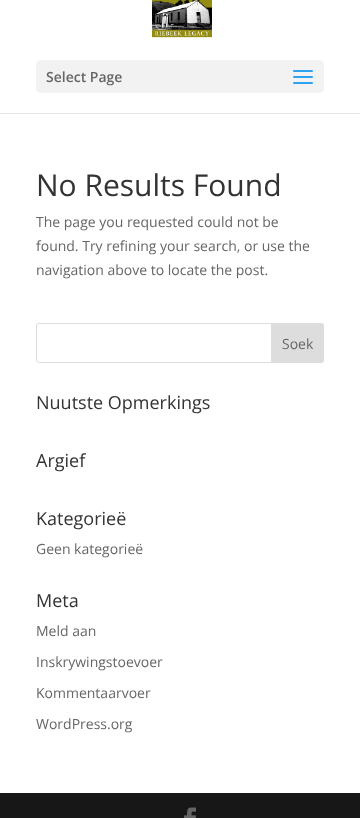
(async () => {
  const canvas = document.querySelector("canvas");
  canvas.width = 360;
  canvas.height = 818;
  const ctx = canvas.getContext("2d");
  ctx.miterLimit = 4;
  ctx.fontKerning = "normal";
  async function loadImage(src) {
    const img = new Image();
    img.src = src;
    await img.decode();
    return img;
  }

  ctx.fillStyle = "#ffffff";
  ctx.fillRect(0, 0, 360, 818);
  ctx.fillStyle = "#e6e6e6";
  ctx.fillRect(0, 113, 360, 1);
  ctx.drawImage(await loadImage("img/1.png"), 152, 0, 60, 38);
  ctx.fillStyle = "#f2f2f2";
  ctx.beginPath();
  ctx.roundRect(36, 60, 288, 33, 5);
  ctx.fill();
  ctx.drawImage(await loadImage("img/2.png"), 293, 70, 20, 14);
  ctx.beginPath();
  ctx.roundRect(36.5, 323.5, 287, 39, 2.5);
  ctx.strokeStyle = "#dddddd";
  ctx.stroke();
  ctx.fillStyle = "#dddddd";
  ctx.beginPath();
  ctx.roundRect(271.5, 323.5, 52, 39, [0, 2.5, 2.5, 0]);
  ctx.fill();
  ctx.stroke();
  ctx.fillStyle = "#171717";
  ctx.fillRect(0, 793, 360, 25);
  ctx.drawImage(await loadImage("img/3.png"), 184, 807, 12, 11);
  ctx.font = "600 14px Open Sans";
  ctx.fillStyle = "#666666";
  ctx.fillText("Select Page", 46, 82);
  ctx.font = "30px Open Sans";
  ctx.fillStyle = "#333333";
  ctx.fillText("No Results Found", 36, 196);
  ctx.font = "14px Open Sans";
  ctx.fillStyle = "#666666";
  for (const [text, x, y] of [
    ["The page you requested could not be", 36, 227],
    ["found. Try refining your search, or use the", 36, 251],
    ["navigation above to locate the post.", 36, 275],
    ["Soek", 282, 349],
  ]) {
    ctx.fillText(text, x, y);
  }
  ctx.font = "18px Open Sans";
  ctx.fillStyle = "#333333";
  for (const [text, x, y] of [
    ["Nuutste Opmerkings", 36, 409],
    ["Argief", 36, 467],
    ["Kategorieë", 36, 525],
  ]) {
    ctx.fillText(text, x, y);
  }
  ctx.font = "14px Open Sans";
  ctx.fillStyle = "#666666";
  ctx.fillText("Geen kategorieë", 36, 554);
  ctx.font = "18px Open Sans";
  ctx.fillStyle = "#333333";
  ctx.fillText("Meta", 36, 607);
  ctx.font = "14px Open Sans";
  ctx.fillStyle = "#666666";
  for (const [text, x, y] of [
    ["Meld aan", 36, 636],
    ["Inskrywingstoevoer", 36, 667],
    ["Kommentaarvoer", 36, 698],
    ["WordPress.org", 36, 729],
  ]) {
    ctx.fillText(text, x, y);
  }
})();
